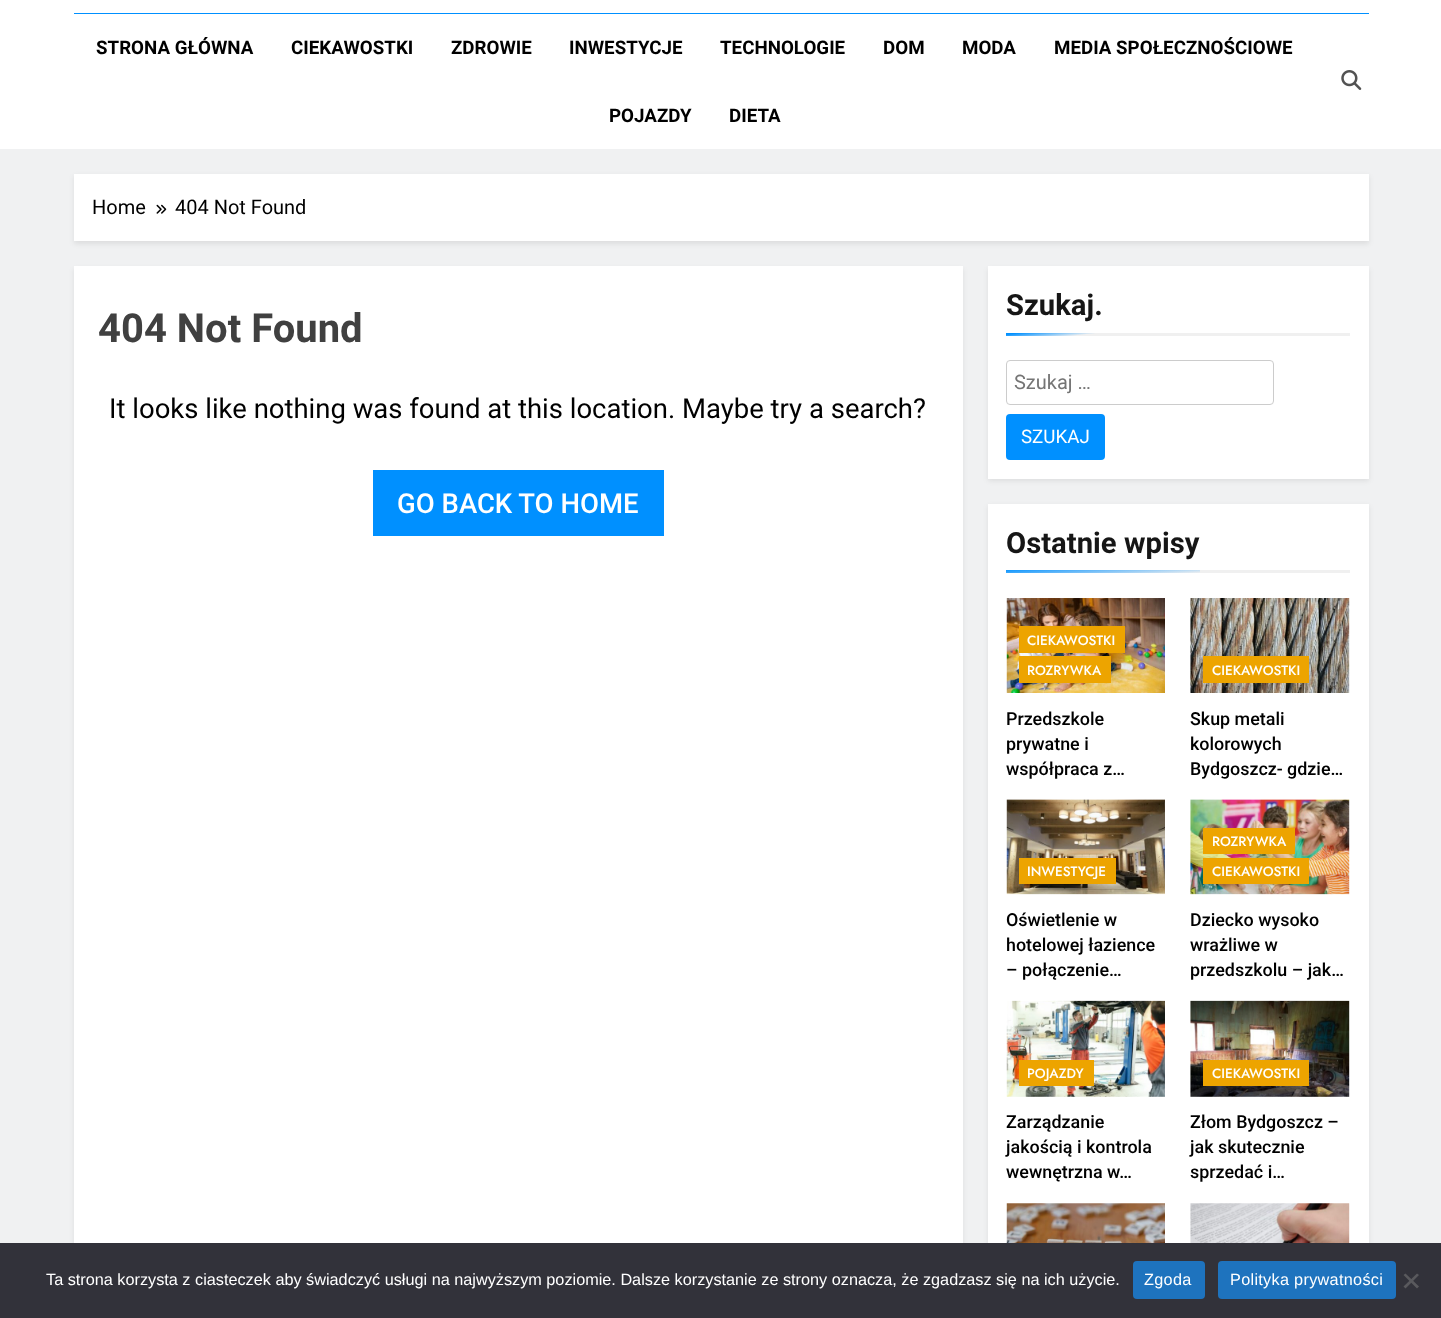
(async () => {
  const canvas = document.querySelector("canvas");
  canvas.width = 1441;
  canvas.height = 1318;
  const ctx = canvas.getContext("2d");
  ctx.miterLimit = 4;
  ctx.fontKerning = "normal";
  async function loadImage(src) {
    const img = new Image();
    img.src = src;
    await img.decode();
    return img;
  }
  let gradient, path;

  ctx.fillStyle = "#f0f1f2";
  ctx.fillRect(0, 0, 1441, 1318);
  ctx.fillStyle = "#ffffff";
  ctx.fillRect(0, 0, 1441, 149);
  ctx.fillStyle = "#0090ff";
  ctx.fillRect(74, 13, 1295, 1);
  ctx.drawImage(await loadImage("img/1.png"), 1341, 70, 21, 20);
  ctx.fillStyle = "rgba(0, 0, 0, 0.08)";
  ctx.filter = "blur(2.5px)";
  ctx.beginPath();
  ctx.rect(74, 176, 1295, 68);
  ctx.fill();
  ctx.filter = "none";
  ctx.fillStyle = "#ffffff";
  ctx.fillRect(74, 174, 1295, 67);
  ctx.drawImage(await loadImage("img/2.png"), 156, 204, 11, 10);
  ctx.fillStyle = "rgba(0, 0, 0, 0.08)";
  ctx.filter = "blur(2.5px)";
  ctx.beginPath();
  ctx.rect(74, 269, 889, 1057);
  ctx.fill();
  ctx.filter = "none";
  ctx.fillStyle = "#ffffff";
  ctx.fillRect(74, 266, 889, 977);
  ctx.fillStyle = "#0090ff";
  ctx.fillRect(373, 470, 291, 66);
  ctx.fillStyle = "rgba(0, 0, 0, 0.08)";
  ctx.filter = "blur(2.5px)";
  ctx.beginPath();
  ctx.rect(988, 269, 381, 212);
  ctx.fill();
  ctx.filter = "none";
  ctx.fillStyle = "#ffffff";
  ctx.fillRect(988, 266, 381, 213);
  ctx.fillStyle = "#f0f0f0";
  ctx.fillRect(1103, 333, 247, 3);
  gradient = ctx.createLinearGradient(1054, 329, 1055, 338);
  gradient.addColorStop(0, "#0090ff");
  gradient.addColorStop(1, "#f0f0f0");
  ctx.fillStyle = gradient;
  ctx.fillRect(1006, 333, 97, 3);
  ctx.beginPath();
  ctx.roundRect(1006.5, 360.5, 267, 44, 3.5);
  ctx.strokeStyle = "#cccccc";
  ctx.stroke();
  ctx.fillStyle = "#0090ff";
  ctx.beginPath();
  ctx.roundRect(1006, 414, 99, 46, 4);
  ctx.fill();
  ctx.fillStyle = "rgba(0, 0, 0, 0.08)";
  ctx.filter = "blur(2.5px)";
  ctx.beginPath();
  ctx.rect(988, 506, 381, 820);
  ctx.fill();
  ctx.filter = "none";
  ctx.fillStyle = "#ffffff";
  ctx.fillRect(988, 504, 381, 739);
  ctx.fillStyle = "#f0f0f0";
  ctx.fillRect(1200, 570, 150, 3);
  gradient = ctx.createLinearGradient(1103, 563, 1104, 579);
  gradient.addColorStop(0, "#0090ff");
  gradient.addColorStop(1, "#f0f0f0");
  ctx.fillStyle = gradient;
  ctx.fillRect(1006, 570, 194, 3);
  ctx.drawImage(await loadImage("img/3.png"), 1006, 598, 159, 95);
  ctx.fillStyle = "#eda400";
  ctx.fillRect(1019, 626, 106, 27);
  ctx.fillRect(1019, 656, 92, 27);
  ctx.drawImage(await loadImage("img/4.png"), 1190, 598, 160, 95);
  ctx.fillRect(1203, 656, 106, 27);
  ctx.drawImage(await loadImage("img/5.png"), 1006, 799, 159, 96);
  ctx.fillRect(1019, 858, 97, 26);
  ctx.drawImage(await loadImage("img/6.png"), 1190, 799, 160, 96);
  ctx.fillRect(1203, 828, 92, 26);
  ctx.fillRect(1203, 858, 106, 26);
  ctx.drawImage(await loadImage("img/7.png"), 1006, 1000, 159, 97);
  ctx.fillRect(1019, 1060, 75, 26);
  ctx.drawImage(await loadImage("img/8.png"), 1190, 1000, 160, 97);
  ctx.fillRect(1203, 1060, 106, 26);
  ctx.drawImage(await loadImage("img/9.png"), 1006, 1203, 159, 40);
  ctx.drawImage(await loadImage("img/10.png"), 1190, 1203, 160, 40);
  ctx.fillStyle = "#32323a";
  ctx.fillRect(0, 1243, 1441, 75);
  ctx.fillStyle = "#1e73be";
  ctx.beginPath();
  ctx.roundRect(1133, 1261, 72, 38, 4);
  ctx.fill();
  ctx.beginPath();
  ctx.roundRect(1218, 1261, 178, 38, 4);
  ctx.fill();
  ctx.fillStyle = "#59595d";
  path = new Path2D("M1417 1273.5L1419 1275L1405.5 1288.5L1403.5 1286.5Z");
  ctx.fill(path);
  path = new Path2D("M1403.5 1275L1405.5 1273.5L1419 1286.5L1417 1288.5Z");
  ctx.fill(path);
  ctx.font = "bold 18.75px Roboto";
  ctx.fillStyle = "#000000";
  for (const [text, x, y] of [
    ["STRONA GŁÓWNA", 96, 54],
    ["CIEKAWOSTKI", 291, 54],
    ["ZDROWIE", 451, 54],
    ["INWESTYCJE", 569, 54],
    ["TECHNOLOGIE", 720, 54],
    ["DOM", 883, 54],
    ["MODA", 962, 54],
    ["MEDIA SPOŁECZNOŚCIOWE", 1054, 54],
    ["POJAZDY", 609, 122],
    ["DIETA", 729, 122],
  ]) {
    ctx.fillText(text, x, y);
  }
  ctx.font = "20px Roboto";
  ctx.fillText("Home", 92, 214);
  ctx.fillText("404 Not Found", 175, 214);
  ctx.font = "bold 40px Roboto";
  ctx.fillStyle = "#404040";
  ctx.fillText("404 Not Found", 98, 342);
  ctx.font = "27.5px Roboto";
  ctx.fillStyle = "#000000";
  ctx.fillText("It looks like nothing was found at this location. Maybe try a search?", 109, 418);
  ctx.font = "500 27.5px Roboto";
  ctx.fillStyle = "#ffffff";
  ctx.fillText("GO BACK TO HOME", 397, 513);
  ctx.font = "bold 29.25px Roboto";
  ctx.fillStyle = "#161616";
  ctx.fillText("Szukaj.", 1006, 315);
  ctx.font = "20px Roboto";
  ctx.fillStyle = "#757575";
  ctx.fillText("Szukaj …", 1014, 389);
  ctx.font = "18.75px Roboto";
  ctx.fillStyle = "#ffffff";
  ctx.fillText("SZUKAJ", 1021, 443);
  ctx.font = "bold 29.25px Roboto";
  ctx.fillStyle = "#161616";
  ctx.fillText("Ostatnie wpisy", 1006, 553);
  ctx.font = "500 13.5px Jost";
  ctx.fillStyle = "#ffffff";
  ctx.fillText("CIEKAWOSTKI", 1027, 645);
  ctx.fillText("ROZRYWKA", 1027, 675);
  ctx.font = "500 17.9px Roboto";
  ctx.fillStyle = "#000000";
  for (const [text, x, y] of [
    ["Przedszkole", 1006, 725],
    ["prywatne i", 1006, 750],
    ["współpraca z…", 1006, 775],
  ]) {
    ctx.fillText(text, x, y);
  }
  ctx.font = "500 13.5px Jost";
  ctx.fillStyle = "#ffffff";
  ctx.fillText("CIEKAWOSTKI", 1212, 675);
  ctx.font = "500 17.9px Roboto";
  ctx.fillStyle = "#000000";
  for (const [text, x, y] of [
    ["Skup metali", 1190, 725],
    ["kolorowych", 1190, 750],
    ["Bydgoszcz- gdzie…", 1190, 775],
  ]) {
    ctx.fillText(text, x, y);
  }
  ctx.font = "500 13.5px Jost";
  ctx.fillStyle = "#ffffff";
  ctx.fillText("INWESTYCJE", 1027, 876);
  ctx.font = "500 17.9px Roboto";
  ctx.fillStyle = "#000000";
  for (const [text, x, y] of [
    ["Oświetlenie w", 1006, 926],
    ["hotelowej łazience", 1006, 951],
    ["– połączenie…", 1006, 976],
  ]) {
    ctx.fillText(text, x, y);
  }
  ctx.font = "500 13.5px Jost";
  ctx.fillStyle = "#ffffff";
  ctx.fillText("ROZRYWKA", 1212, 846);
  ctx.fillText("CIEKAWOSTKI", 1212, 876);
  ctx.font = "500 17.9px Roboto";
  ctx.fillStyle = "#000000";
  for (const [text, x, y] of [
    ["Dziecko wysoko", 1190, 926],
    ["wrażliwe w", 1190, 951],
    ["przedszkolu – jak…", 1190, 976],
  ]) {
    ctx.fillText(text, x, y);
  }
  ctx.font = "500 13.5px Jost";
  ctx.fillStyle = "#ffffff";
  ctx.fillText("POJAZDY", 1027, 1078);
  ctx.font = "500 17.9px Roboto";
  ctx.fillStyle = "#000000";
  for (const [text, x, y] of [
    ["Zarządzanie", 1006, 1128],
    ["jakością i kontrola", 1006, 1153],
    ["wewnętrzna w…", 1006, 1178],
  ]) {
    ctx.fillText(text, x, y);
  }
  ctx.font = "500 13.5px Jost";
  ctx.fillStyle = "#ffffff";
  ctx.fillText("CIEKAWOSTKI", 1212, 1078);
  ctx.font = "500 17.9px Roboto";
  ctx.fillStyle = "#000000";
  for (const [text, x, y] of [
    ["Złom Bydgoszcz –", 1190, 1128],
    ["jak skutecznie", 1190, 1153],
    ["sprzedać i…", 1190, 1178],
  ]) {
    ctx.fillText(text, x, y);
  }
  ctx.font = "16.25px Liberation Sans";
  ctx.fillStyle = "#ffffff";
  ctx.fillText("Ta strona korzysta z ciasteczek aby świadczyć usługi na najwyższym poziomie. Dalsze korzystanie ze strony oznacza, że zgadzasz się na ich użycie.", 46, 1285);
  ctx.letterSpacing = "0.3px";
  ctx.fillText("Zgoda", 1144, 1285);
  ctx.fillText("Polityka prywatności", 1230, 1285);
})();
